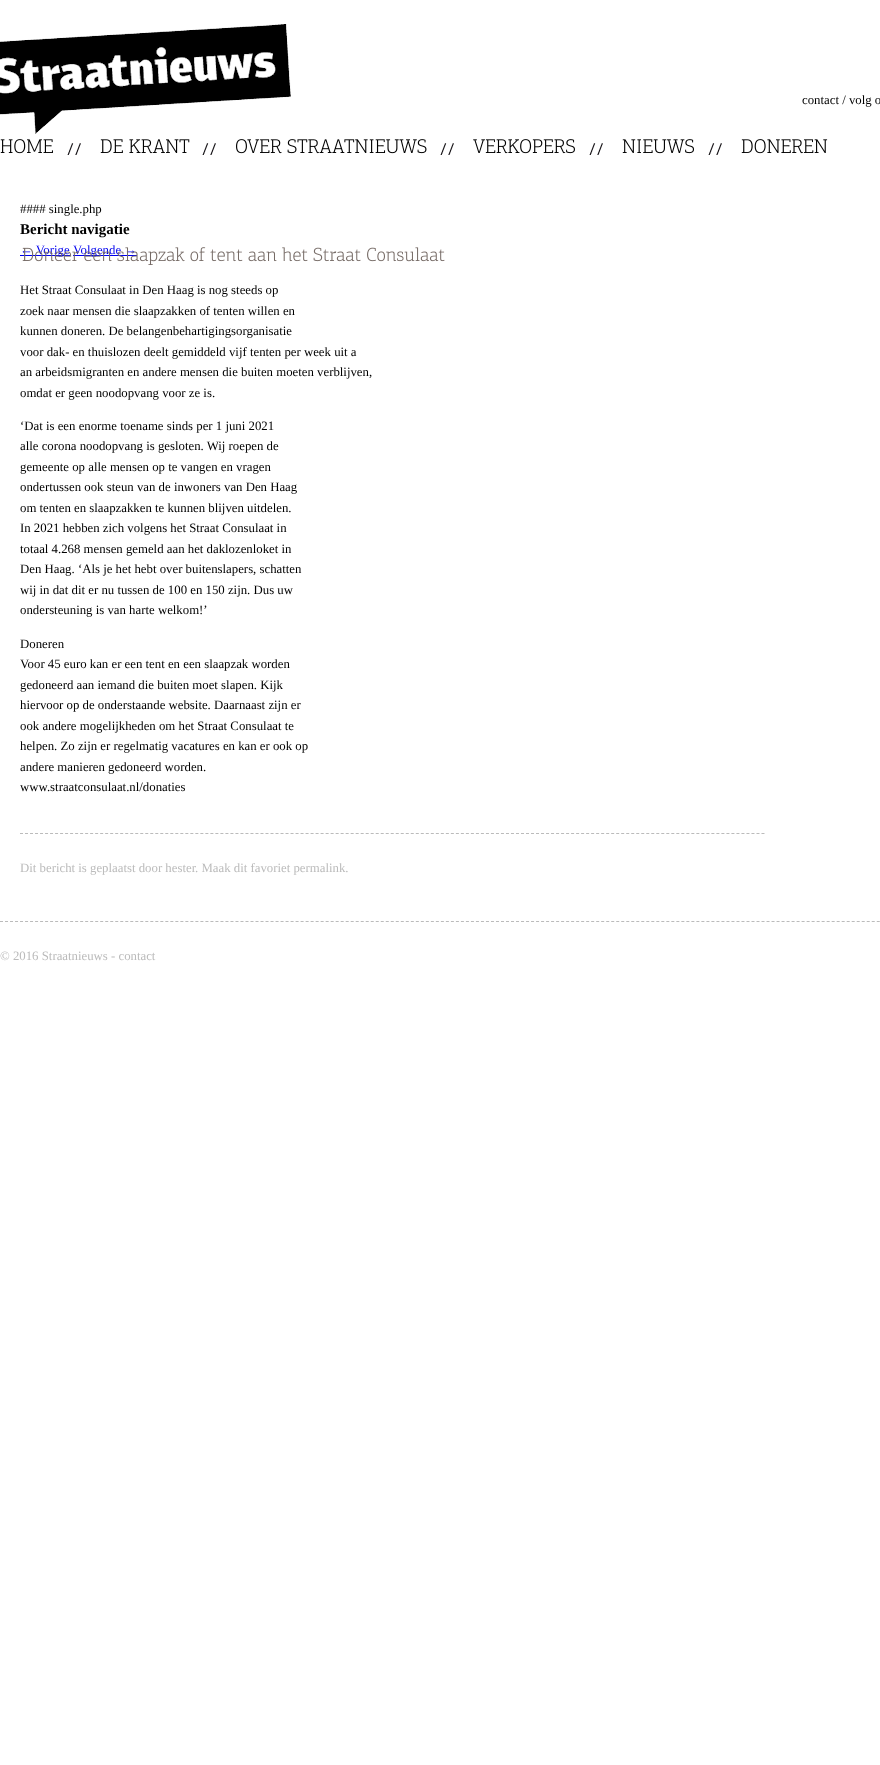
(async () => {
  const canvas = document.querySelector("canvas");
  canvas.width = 880;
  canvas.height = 1765;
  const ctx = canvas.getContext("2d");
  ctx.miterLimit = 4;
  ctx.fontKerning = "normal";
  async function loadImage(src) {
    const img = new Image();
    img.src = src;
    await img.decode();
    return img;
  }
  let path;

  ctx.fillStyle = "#ffffff";
  ctx.fillRect(0, 0, 880, 1765);
  ctx.drawImage(await loadImage("img/1.png"), 0, 24, 291, 110);
  ctx.drawImage(await loadImage("img/2.png"), 67, 143, 14, 12);
  ctx.drawImage(await loadImage("img/3.png"), 0, 139, 53, 15);
  ctx.drawImage(await loadImage("img/2.png"), 202, 143, 14, 12);
  ctx.drawImage(await loadImage("img/4.png"), 100, 139, 90, 15);
  ctx.drawImage(await loadImage("img/2.png"), 440, 143, 14, 12);
  ctx.drawImage(await loadImage("img/5.png"), 236, 139, 191, 15);
  ctx.drawImage(await loadImage("img/2.png"), 589, 143, 14, 12);
  ctx.drawImage(await loadImage("img/6.png"), 473, 139, 102, 15);
  ctx.drawImage(await loadImage("img/2.png"), 708, 143, 14, 12);
  ctx.drawImage(await loadImage("img/7.png"), 622, 139, 72, 15);
  ctx.drawImage(await loadImage("img/8.png"), 741, 139, 87, 15);
  ctx.fillStyle = "#0000ee";
  ctx.fillRect(20, 255, 50, 1);
  ctx.fillRect(73, 255, 64, 1);
  ctx.save();
  ctx.beginPath();
  ctx.rect(0, 177, 765, 708);
  ctx.clip();
  path = new Path2D("M20 833.5H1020");
  ctx.strokeStyle = "#bbbbbb";
  ctx.setLineDash([3, 2.01]);
  ctx.stroke(path);
  ctx.restore();
  path = new Path2D("M0 921.5H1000");
  ctx.strokeStyle = "#bbbbbb";
  ctx.setLineDash([3, 2.01]);
  ctx.stroke(path);
  ctx.font = "12.8px Liberation Serif";
  ctx.fillStyle = "#000000";
  ctx.fillText("contact / volg o", 802, 104);
  ctx.fillText("#### single.php", 20, 213);
  ctx.font = "bold 15px Liberation Serif";
  ctx.fillText("Bericht navigatie", 20, 234);
  ctx.font = "12.8px Liberation Serif";
  ctx.fillStyle = "#0000ee";
  ctx.fillText("← Vorige", 20, 254);
  ctx.fillText("Volgende →", 73, 254);
  ctx.drawImage(await loadImage("img/9.png"), 22, 247, 423, 18);
  ctx.fillStyle = "#000000";
  for (const [text, x, y] of [
    ["Het Straat Consulaat in Den Haag is nog steeds op", 20, 294],
    ["zoek naar mensen die slaapzakken of tenten willen en", 20, 315],
    ["kunnen doneren. De belangenbehartigingsorganisatie", 20, 335],
    ["voor dak- en thuislozen deelt gemiddeld vijf tenten per week uit a", 20, 356],
    ["an arbeidsmigranten en andere mensen die buiten moeten verblijven,", 20, 376],
    ["omdat er geen noodopvang voor ze is.", 20, 397],
    ["‘Dat is een enorme toename sinds per 1 juni 2021", 20, 430],
    ["alle corona noodopvang is gesloten. Wij roepen de", 20, 450],
    ["gemeente op alle mensen op te vangen en vragen", 20, 471],
    ["ondertussen ook steun van de inwoners van Den Haag", 20, 491],
    ["om tenten en slaapzakken te kunnen blijven uitdelen.", 20, 512],
    ["In 2021 hebben zich volgens het Straat Consulaat in", 20, 532],
    ["totaal 4.268 mensen gemeld aan het daklozenloket in", 20, 553],
    ["Den Haag. ‘Als je het hebt over buitenslapers, schatten", 20, 573],
    ["wij in dat dit er nu tussen de 100 en 150 zijn. Dus uw", 20, 594],
    ["ondersteuning is van harte welkom!’", 20, 614],
    ["Doneren", 20, 648],
    ["Voor 45 euro kan er een tent en een slaapzak worden", 20, 668],
    ["gedoneerd aan iemand die buiten moet slapen. Kijk", 20, 689],
    ["hiervoor op de onderstaande website. Daarnaast zijn er", 20, 709],
    ["ook andere mogelijkheden om het Straat Consulaat te", 20, 730],
    ["helpen. Zo zijn er regelmatig vacatures en kan er ook op", 20, 750],
    ["andere manieren gedoneerd worden.", 20, 771],
    ["www.straatconsulaat.nl/donaties", 20, 791],
  ]) {
    ctx.fillText(text, x, y);
  }
  ctx.fillStyle = "#bbbbbb";
  for (const [text, x, y] of [
    ["Dit bericht is geplaatst door hester", 20, 872],
    [". Maak dit favoriet permalink.", 195, 872],
    ["© 2016 Straatnieuws - contact", 0, 960],
  ]) {
    ctx.fillText(text, x, y);
  }
})();
